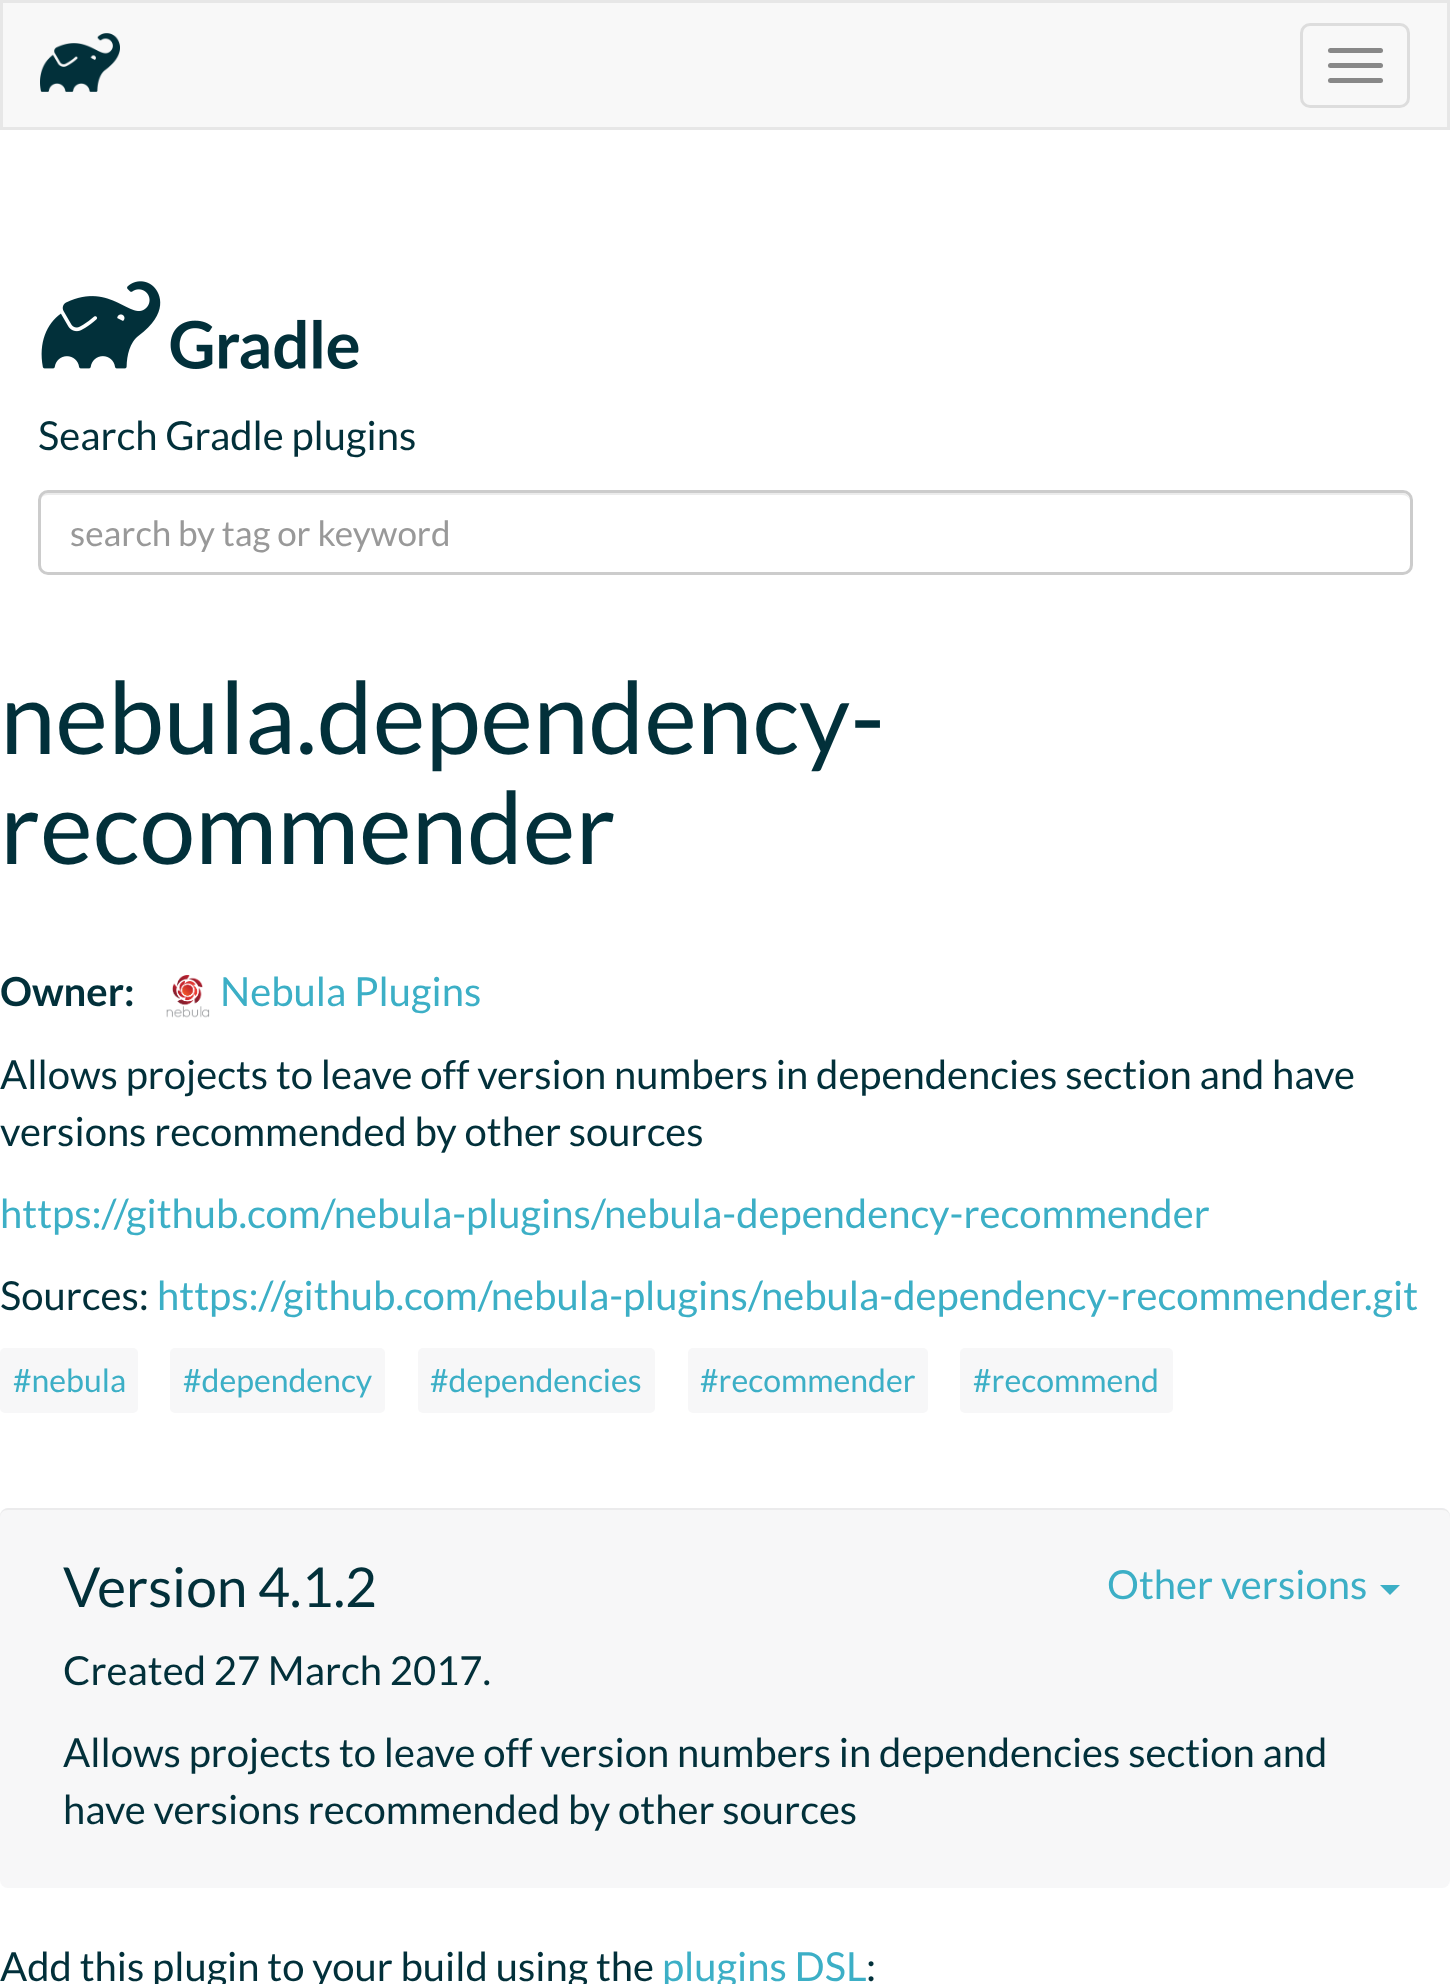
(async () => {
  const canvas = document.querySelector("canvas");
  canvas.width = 1450;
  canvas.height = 1984;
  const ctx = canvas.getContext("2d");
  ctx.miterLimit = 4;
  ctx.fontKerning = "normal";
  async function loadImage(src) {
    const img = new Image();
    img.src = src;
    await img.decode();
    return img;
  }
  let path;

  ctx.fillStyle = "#ffffff";
  ctx.fillRect(0, 0, 1450, 1984);
  ctx.fillStyle = "#f8f8f8";
  ctx.beginPath();
  ctx.rect(1.5, 1.5, 1447, 127);
  ctx.fill();
  ctx.strokeStyle = "#e7e7e7";
  ctx.lineWidth = 3;
  ctx.stroke();
  ctx.drawImage(await loadImage("img/1.png"), 40, 33, 80, 59);
  ctx.beginPath();
  ctx.roundRect(1301.5, 24.5, 107, 82, 8.5);
  ctx.strokeStyle = "#dddddd";
  ctx.stroke();
  ctx.fillStyle = "#888888";
  ctx.beginPath();
  ctx.roundRect(1328, 48, 55, 5, 2.5);
  ctx.fill();
  ctx.beginPath();
  ctx.roundRect(1328, 63, 55, 5, 2.5);
  ctx.fill();
  ctx.beginPath();
  ctx.roundRect(1328, 78, 55, 5, 2.5);
  ctx.fill();
  ctx.drawImage(await loadImage("img/2.png"), 41, 281, 318, 88);
  ctx.fillStyle = "#ececec";
  path = new Path2D("M48 495H1402C1407 495 1410 498 1410 502C1410 497 1407 493 1402 493H48C43 493 40 497 40 502C40 498 43 495 48 495Z");
  ctx.fill(path);
  ctx.beginPath();
  ctx.roundRect(39.5, 491.5, 1372, 82, 8.5);
  ctx.strokeStyle = "#cccccc";
  ctx.stroke();
  ctx.drawImage(await loadImage("img/3.png"), 166, 975, 44, 43);
  ctx.fillStyle = "#f7f7f8";
  ctx.beginPath();
  ctx.roundRect(0, 1348, 138, 65, 5);
  ctx.fill();
  ctx.beginPath();
  ctx.roundRect(170, 1348, 215, 65, 5);
  ctx.fill();
  ctx.beginPath();
  ctx.roundRect(418, 1348, 237, 65, 5);
  ctx.fill();
  ctx.beginPath();
  ctx.roundRect(688, 1348, 240, 65, 5);
  ctx.fill();
  ctx.beginPath();
  ctx.roundRect(960, 1348, 213, 65, 5);
  ctx.fill();
  ctx.beginPath();
  ctx.roundRect(0, 1508, 1450, 380, 8);
  ctx.fill();
  ctx.fillStyle = "#ebebec";
  path = new Path2D("M8 1510H1442C1447 1510 1450 1513 1450 1518V1516C1450 1512 1446 1508 1442 1508H8C4 1508 0 1512 0 1516V1518C0 1513 3 1510 8 1510Z");
  ctx.fill(path);
  ctx.fillStyle = "#3cafc6";
  path = new Path2D("M1380 1585H1400L1390 1595Z");
  ctx.fill(path);
  ctx.font = "40px Lato";
  ctx.fillStyle = "#02303a";
  ctx.fillText("Search Gradle plugins", 38, 450);
  ctx.font = "35px Lato";
  ctx.fillStyle = "#999999";
  ctx.fillText("search by tag or keyword", 70, 546);
  ctx.font = "100px Lato";
  ctx.fillStyle = "#02303a";
  ctx.fillText("nebula.dependency-", 0, 754);
  ctx.fillText("recommender", 0, 864);
  ctx.font = "bold 40px Lato";
  ctx.fillText("Owner:", 0, 1006);
  ctx.font = "40px Lato";
  ctx.fillStyle = "#3cafc6";
  ctx.fillText("Nebula Plugins", 220, 1006);
  ctx.fillStyle = "#02303a";
  ctx.fillText("Allows projects to leave off version numbers in dependencies section and have", 0, 1089);
  ctx.fillText("versions recommended by other sources", 0, 1146);
  ctx.fillStyle = "#3cafc6";
  ctx.fillText("https://github.com/nebula-plugins/nebula-dependency-recommender", 0, 1228);
  ctx.fillStyle = "#02303a";
  ctx.fillText("Sources:", 0, 1310);
  ctx.fillStyle = "#3cafc6";
  ctx.fillText("https://github.com/nebula-plugins/nebula-dependency-recommender.git", 157, 1310);
  ctx.font = "32px Lato";
  for (const [text, x, y] of [
    ["#nebula", 13, 1392],
    ["#dependency", 183, 1392],
    ["#dependencies", 430, 1392],
    ["#recommender", 700, 1392],
    ["#recommend", 973, 1392],
  ]) {
    ctx.fillText(text, x, y);
  }
  ctx.font = "55px Lato";
  ctx.fillStyle = "#02303a";
  ctx.fillText("Version 4.1.2", 63, 1607);
  ctx.font = "40px Lato";
  ctx.fillStyle = "#3cafc6";
  ctx.fillText("Other versions", 1107, 1599);
  ctx.fillStyle = "#02303a";
  for (const [text, x, y] of [
    ["Created 27 March 2017.", 63, 1685],
    ["Allows projects to leave off version numbers in dependencies section and", 63, 1767],
    ["have versions recommended by other sources", 63, 1824],
    ["Add this plugin to your build using the", 0, 1981],
  ]) {
    ctx.fillText(text, x, y);
  }
  ctx.fillStyle = "#3cafc6";
  ctx.fillText("plugins DSL", 662, 1981);
  ctx.fillStyle = "#02303a";
  ctx.fillText(":", 866, 1981);
})();
